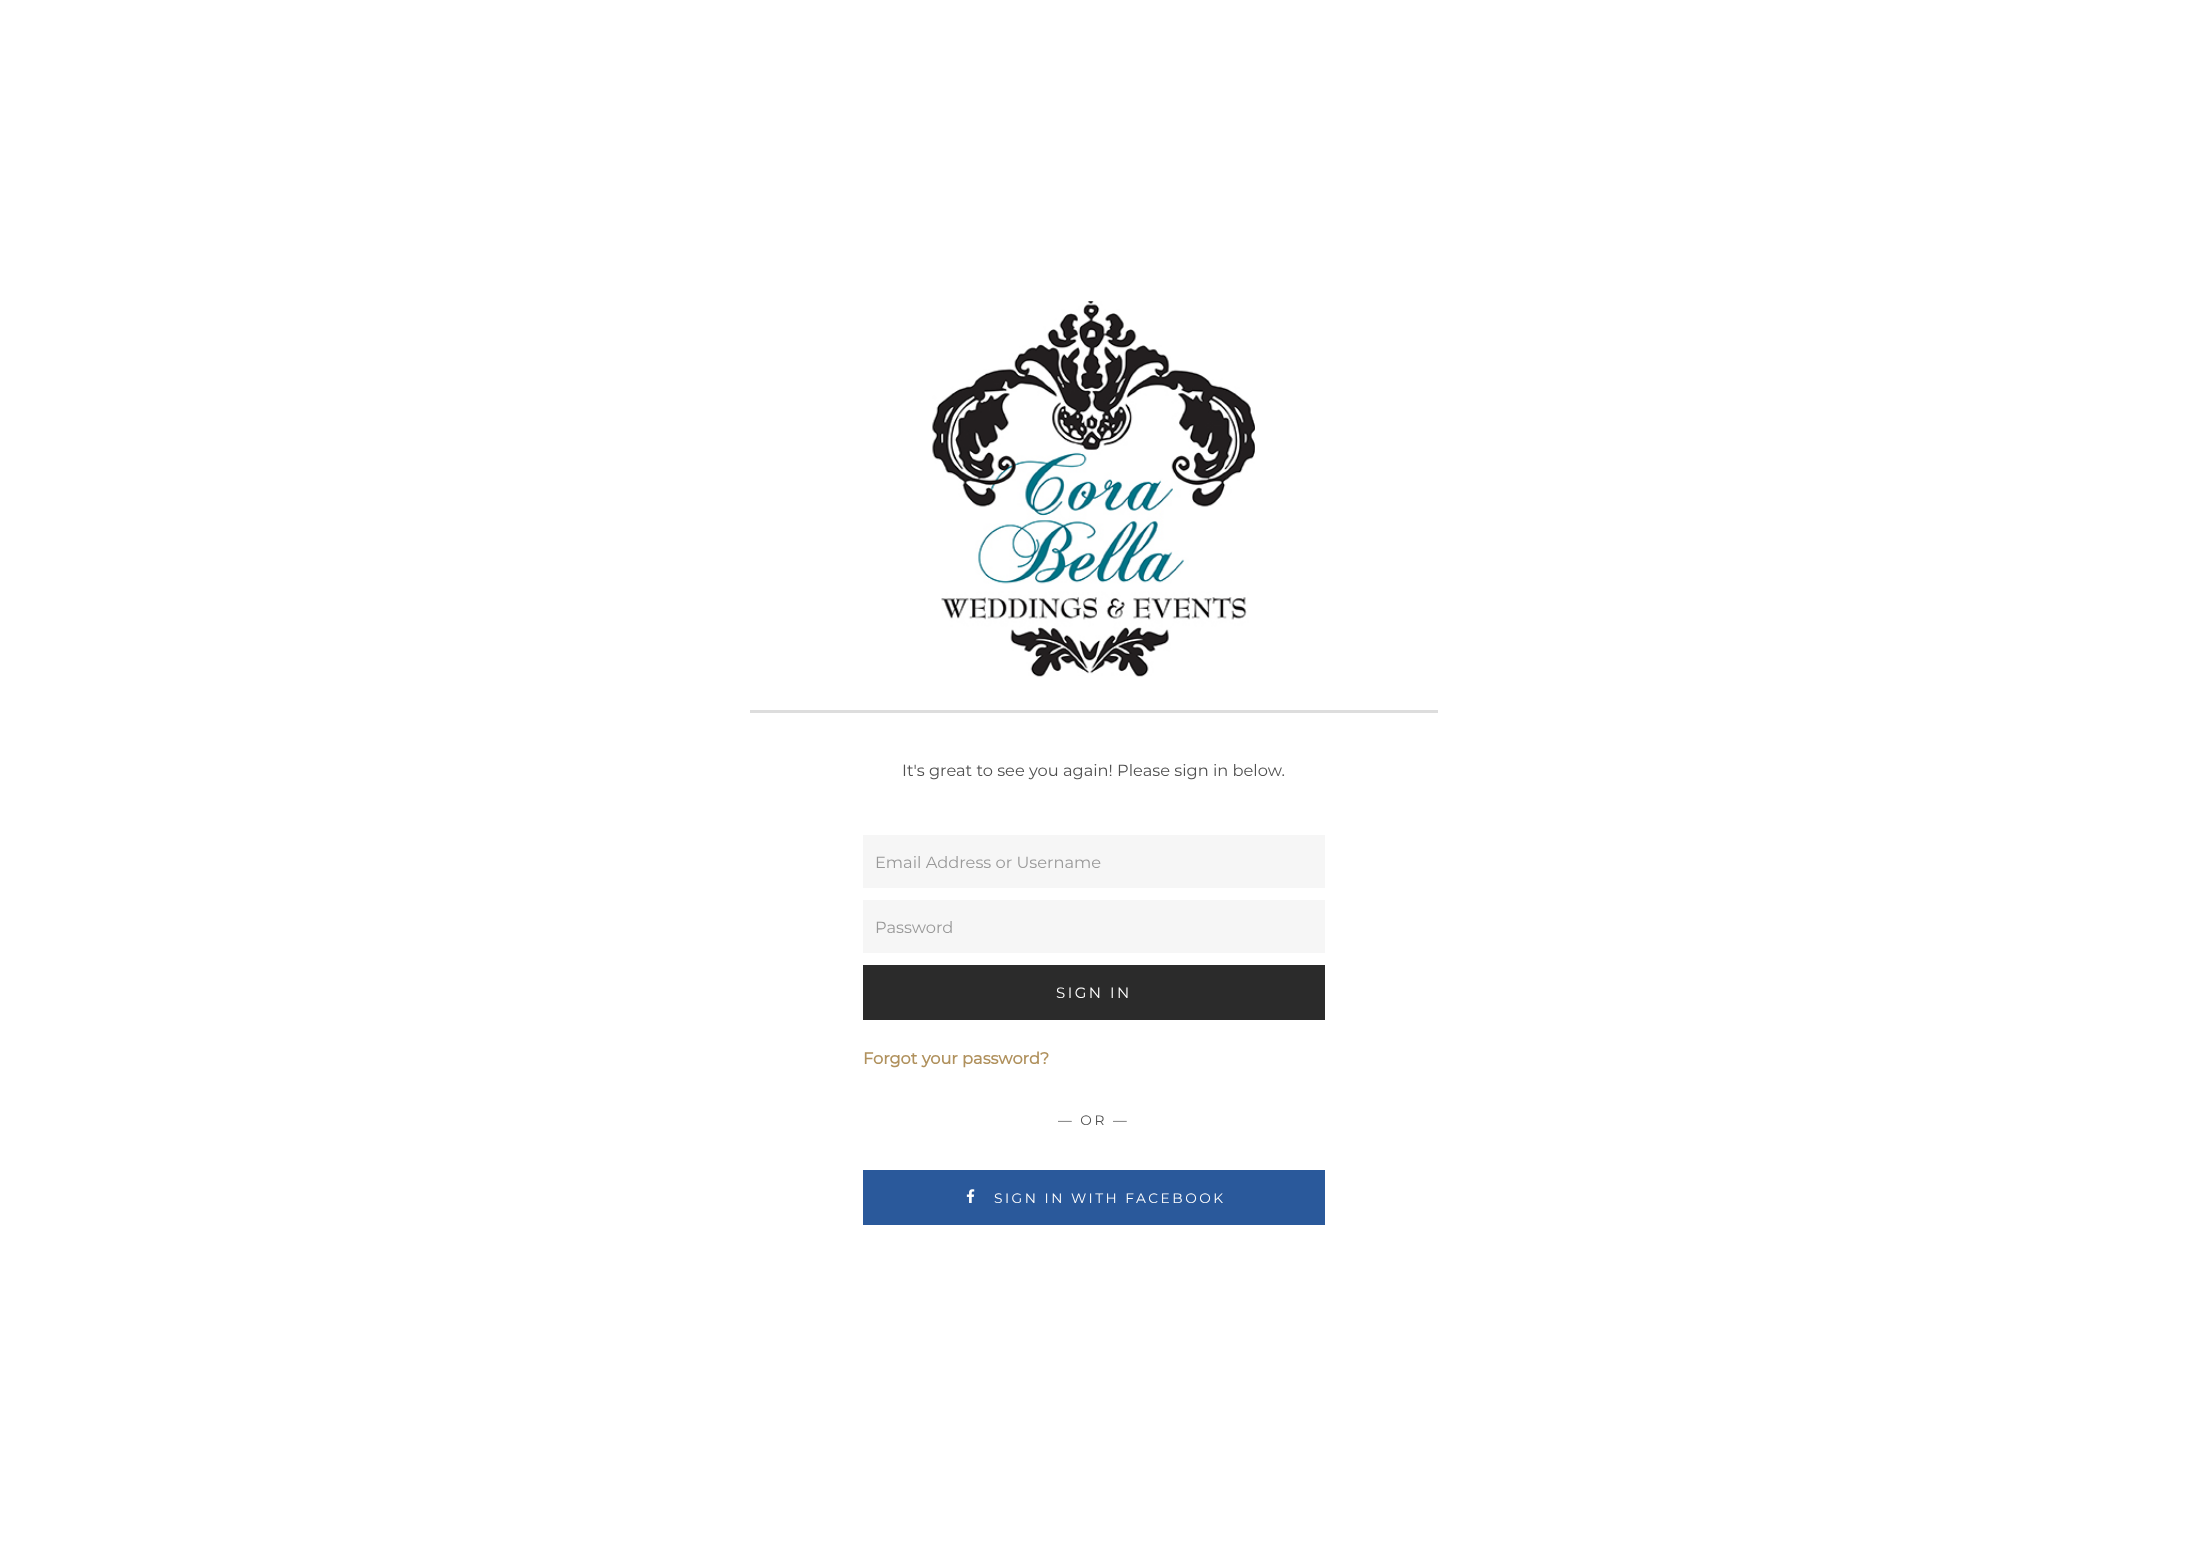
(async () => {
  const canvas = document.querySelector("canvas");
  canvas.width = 2187;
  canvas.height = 1557;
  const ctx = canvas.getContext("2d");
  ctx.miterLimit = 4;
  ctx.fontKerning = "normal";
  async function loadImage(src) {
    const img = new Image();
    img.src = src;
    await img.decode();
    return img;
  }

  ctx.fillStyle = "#ffffff";
  ctx.fillRect(0, 0, 2187, 1557);
  ctx.drawImage(await loadImage("img/1.png"), 932, 301, 323, 376);
  for (const [x, y, w, h, color] of [
    [750, 710, 688, 3, "#dddddd"],
    [863, 835, 462, 53, "#f6f6f6"],
    [863, 900, 462, 53, "#f6f6f6"],
    [863, 965, 462, 55, "#2b2b2b"],
    [863, 1170, 462, 55, "#2a599b"],
  ]) {
    ctx.fillStyle = color;
    ctx.fillRect(x, y, w, h);
  }
  ctx.drawImage(await loadImage("img/2.png"), 966, 1189, 9, 14);
  ctx.font = "100 16.25px Montserrat";
  ctx.fillStyle = "#505050";
  ctx.fillText("It's great to see you again! Please sign in below.", 902, 776);
  ctx.fillStyle = "#999999";
  ctx.fillText("Email Address or Username", 875, 868);
  ctx.fillText("Password", 875, 933);
  ctx.letterSpacing = "2.5px";
  ctx.font = "100 15px Montserrat";
  ctx.fillStyle = "#ffffff";
  ctx.fillText("SIGN IN", 1056, 998);
  ctx.letterSpacing = "0px";
  ctx.font = "bold 16.25px Montserrat";
  ctx.fillStyle = "#b0915d";
  ctx.fillText("Forgot your password?", 863, 1064);
  ctx.letterSpacing = "2.5px";
  ctx.font = "100 13.75px Montserrat";
  ctx.fillStyle = "#505050";
  ctx.fillText("— OR —", 1058, 1125);
  ctx.fillStyle = "#ffffff";
  ctx.fillText("SIGN IN WITH FACEBOOK", 994, 1203);
})();
